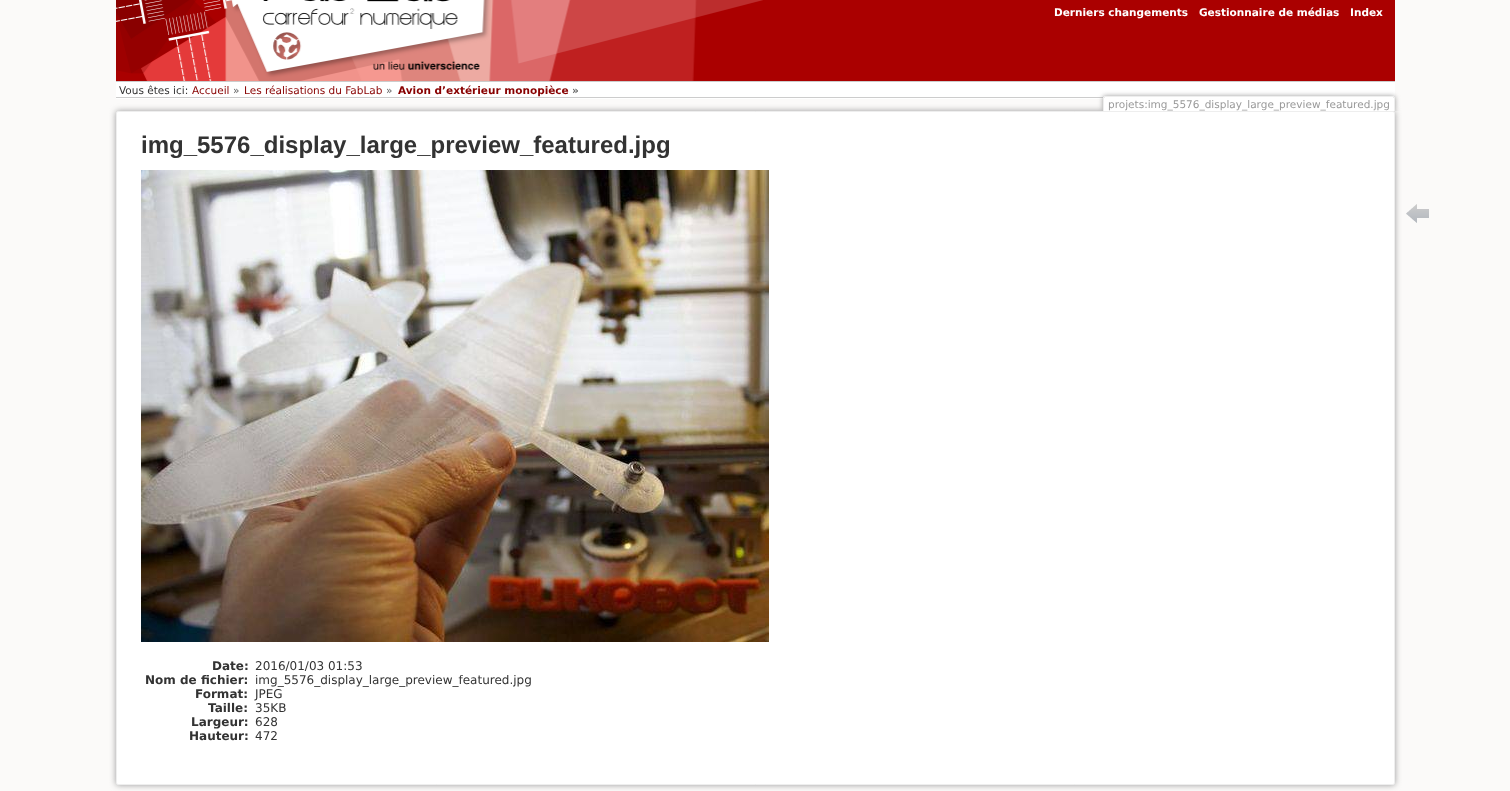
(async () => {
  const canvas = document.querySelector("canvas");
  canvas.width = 1510;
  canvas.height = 791;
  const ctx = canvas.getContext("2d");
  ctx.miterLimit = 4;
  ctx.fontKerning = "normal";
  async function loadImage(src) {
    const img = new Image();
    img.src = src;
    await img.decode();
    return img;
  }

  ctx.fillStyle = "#fbfaf9";
  ctx.fillRect(0, 0, 1510, 791);
  ctx.fillStyle = "#aa0000";
  ctx.fillRect(763, 0, 632, 81);
  ctx.drawImage(await loadImage("img/1.png"), 116, 0, 647, 81);
  for (const [x, y, w, h, color] of [
    [116, 82, 1279, 17, "#ffffff"],
    [116, 81, 1279, 1, "#cccccc"],
    [116, 97, 1279, 1, "#cccccc"],
  ]) {
    ctx.fillStyle = color;
    ctx.fillRect(x, y, w, h);
  }
  ctx.fillStyle = "#999999";
  ctx.filter = "blur(3px)";
  ctx.beginPath();
  ctx.roundRect(116, 111, 1279, 674, 2);
  ctx.fill();
  ctx.filter = "none";
  ctx.fillStyle = "#ffffff";
  ctx.beginPath();
  ctx.roundRect(116.5, 111.5, 1278, 673, 1.5);
  ctx.fill();
  ctx.strokeStyle = "#eeeeee";
  ctx.stroke();
  ctx.save();
  ctx.beginPath();
  ctx.rect(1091, 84, 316, 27);
  ctx.clip();
  ctx.fillStyle = "#999999";
  ctx.filter = "blur(2.5px)";
  ctx.beginPath();
  ctx.roundRect(1103, 96, 292, 15, 2);
  ctx.fill();
  ctx.filter = "none";
  ctx.restore();
  ctx.beginPath();
  ctx.roundRect(1104, 97, 290, 14, [1, 1, 0, 0]);
  ctx.fill();
  for (const [x, y, w, h, color] of [
    [1104, 96, 290, 1, "#eeeeee"],
    [1394, 97, 1, 14, "#eeeeee"],
    [1103, 97, 1, 14, "#eeeeee"],
  ]) {
    ctx.fillStyle = color;
    ctx.fillRect(x, y, w, h);
  }
  ctx.drawImage(await loadImage("img/2.png"), 141, 170, 628, 472);
  ctx.drawImage(await loadImage("img/3.png"), 1406, 204, 23, 19);
  ctx.font = "bold 10.5px DejaVu Sans";
  ctx.fillStyle = "#ffffff";
  for (const [text, x, y] of [
    ["Derniers changements", 1054, 16],
    ["Gestionnaire de médias", 1199, 16],
    ["Index", 1350, 16],
  ]) {
    ctx.fillText(text, x, y);
  }
  ctx.font = "10.5px DejaVu Sans";
  ctx.fillStyle = "#333333";
  ctx.fillText("Vous êtes ici:", 119, 94);
  ctx.fillStyle = "#880000";
  ctx.fillText("Accueil", 192, 94);
  ctx.fillStyle = "#666666";
  ctx.fillText("»", 233, 94);
  ctx.fillStyle = "#880000";
  ctx.fillText("Les réalisations du FabLab", 244, 94);
  ctx.fillStyle = "#666666";
  ctx.fillText("»", 386, 94);
  ctx.font = "bold 10.5px DejaVu Sans";
  ctx.fillStyle = "#880000";
  ctx.fillText("Avion d’extérieur monopièce", 398, 94);
  ctx.fillStyle = "#666666";
  ctx.fillText("»", 572, 94);
  ctx.font = "10.5px DejaVu Sans";
  ctx.fillStyle = "#999999";
  ctx.fillText("projets:img_5576_display_large_preview_featured.jpg", 1108, 108);
  ctx.font = "bold 24px Liberation Sans";
  ctx.fillStyle = "#333333";
  ctx.fillText("img_5576_display_large_preview_featured.jpg", 141, 153);
  ctx.font = "bold 12px DejaVu Sans";
  ctx.fillText("Date:", 212, 670);
  ctx.font = "12px DejaVu Sans";
  ctx.fillText("2016/01/03 01:53", 255, 670);
  ctx.font = "bold 12px DejaVu Sans";
  ctx.fillText("Nom de fichier:", 145, 684);
  ctx.font = "12px DejaVu Sans";
  ctx.fillText("img_5576_display_large_preview_featured.jpg", 255, 684);
  ctx.font = "bold 12px DejaVu Sans";
  ctx.fillText("Format:", 195, 698);
  ctx.font = "12px DejaVu Sans";
  ctx.fillText("JPEG", 255, 698);
  ctx.font = "bold 12px DejaVu Sans";
  ctx.fillText("Taille:", 208, 712);
  ctx.font = "12px DejaVu Sans";
  ctx.fillText("35KB", 255, 712);
  ctx.font = "bold 12px DejaVu Sans";
  ctx.fillText("Largeur:", 191, 726);
  ctx.font = "12px DejaVu Sans";
  ctx.fillText("628", 255, 726);
  ctx.font = "bold 12px DejaVu Sans";
  ctx.fillText("Hauteur:", 189, 740);
  ctx.font = "12px DejaVu Sans";
  ctx.fillText("472", 255, 740);
})();
